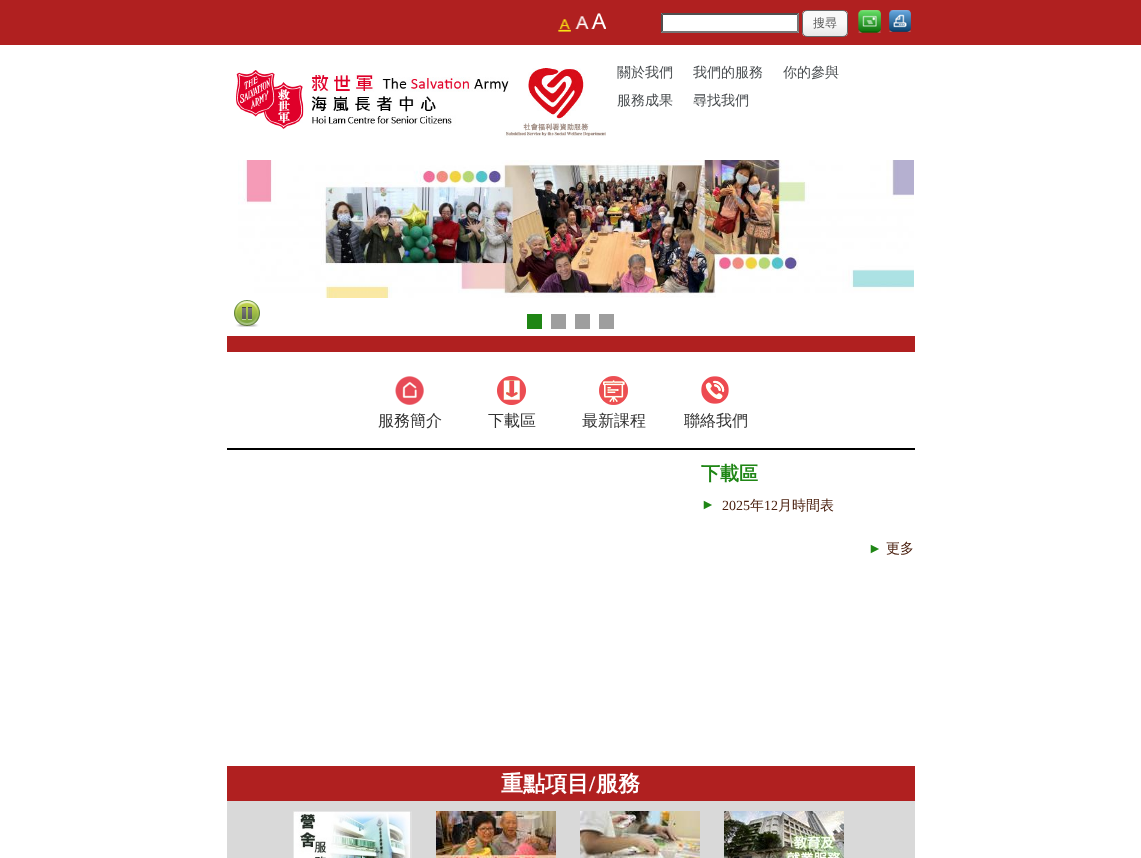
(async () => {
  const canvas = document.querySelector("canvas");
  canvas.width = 1141;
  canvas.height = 858;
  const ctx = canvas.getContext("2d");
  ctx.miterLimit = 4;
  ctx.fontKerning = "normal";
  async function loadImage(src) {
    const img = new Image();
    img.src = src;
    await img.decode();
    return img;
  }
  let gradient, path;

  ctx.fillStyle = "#ffffff";
  ctx.fillRect(0, 0, 1141, 858);
  ctx.fillStyle = "#b02020";
  ctx.fillRect(0, 0, 1141, 45);
  ctx.drawImage(await loadImage("img/1.png"), 558, 19, 13, 13);
  ctx.drawImage(await loadImage("img/2.png"), 575, 16, 14, 13);
  ctx.drawImage(await loadImage("img/3.png"), 591, 13, 15, 16);
  ctx.fillStyle = "#ffffff";
  ctx.fillRect(661, 13, 138, 20);
  ctx.fillStyle = "#4f4f4f";
  path = new Path2D("M661 13H799L797 15H663Z");
  ctx.fill(path);
  ctx.fillStyle = "#767676";
  path = new Path2D("M799 13V33L797 31V15Z");
  ctx.fill(path);
  path = new Path2D("M799 33H661L663 31H797Z");
  ctx.fill(path);
  ctx.fillStyle = "#4f4f4f";
  path = new Path2D("M661 33V13L663 15V31Z");
  ctx.fill(path);
  ctx.save();
  ctx.beginPath();
  ctx.roundRect(802, 10, 46, 27, 5);
  ctx.clip();
  gradient = ctx.createLinearGradient(825, 11, 825, 36);
  gradient.addColorStop(0.01, "#f9f9f9");
  gradient.addColorStop(0.51, "#f9f9f9");
  gradient.addColorStop(1, "#e7e7e7");
  ctx.fillStyle = gradient;
  ctx.fillRect(802, 11, 46, 25);
  ctx.restore();
  ctx.beginPath();
  ctx.roundRect(802.5, 10.5, 45, 26, 4.5);
  ctx.strokeStyle = "#666666";
  ctx.stroke();
  ctx.drawImage(await loadImage("img/4.png"), 858, 10, 23, 23);
  ctx.drawImage(await loadImage("img/5.png"), 889, 10, 22, 22);
  ctx.drawImage(await loadImage("img/6.png"), 236, 70, 68, 59);
  ctx.drawImage(await loadImage("img/7.png"), 311, 68, 295, 70);
  ctx.drawImage(await loadImage("img/8.png"), 238, 160, 676, 138);
  ctx.drawImage(await loadImage("img/9.png"), 234, 300, 26, 27);
  for (const [x, y, w, h, color] of [
    [527, 314, 15, 15, "#1f8615"],
    [551, 314, 15, 15, "#9e9e9e"],
    [575, 314, 15, 15, "#9e9e9e"],
    [599, 314, 15, 15, "#9e9e9e"],
    [227, 336, 688, 16, "#b02020"],
  ]) {
    ctx.fillStyle = color;
    ctx.fillRect(x, y, w, h);
  }
  ctx.drawImage(await loadImage("img/10.png"), 395, 376, 29, 29);
  ctx.drawImage(await loadImage("img/11.png"), 497, 376, 29, 29);
  ctx.drawImage(await loadImage("img/12.png"), 599, 376, 29, 29);
  ctx.drawImage(await loadImage("img/13.png"), 701, 376, 28, 28);
  for (const [x, y, w, h, color] of [
    [227, 448, 688, 2, "#000000"],
    [227, 766, 688, 35, "#b02020"],
    [227, 801, 688, 57, "#d9d9d9"],
  ]) {
    ctx.fillStyle = color;
    ctx.fillRect(x, y, w, h);
  }
  ctx.drawImage(await loadImage("img/14.png"), 293, 811, 119, 47);
  ctx.drawImage(await loadImage("img/15.png"), 436, 811, 120, 47);
  ctx.drawImage(await loadImage("img/16.png"), 580, 811, 120, 47);
  ctx.drawImage(await loadImage("img/17.png"), 724, 811, 120, 47);
  ctx.font = "500 12px WenQuanYi Zen Hei";
  ctx.fillStyle = "#5a5a5a";
  ctx.fillText("搜尋", 813, 27);
  ctx.font = "500 14px WenQuanYi Zen Hei";
  ctx.fillStyle = "#484c4f";
  for (const [text, x, y] of [
    ["關於我們", 617, 77],
    ["我們的服務", 693, 77],
    ["你的參與", 783, 77],
    ["服務成果", 617, 105],
    ["尋找我們", 693, 105],
  ]) {
    ctx.fillText(text, x, y);
  }
  ctx.font = "500 16px WenQuanYi Zen Hei";
  ctx.fillStyle = "#333333";
  for (const [text, x, y] of [
    ["服務簡介", 378, 426],
    ["下載區", 488, 426],
    ["最新課程", 582, 426],
    ["聯絡我們", 684, 426],
  ]) {
    ctx.fillText(text, x, y);
  }
  ctx.font = "bold 19px WenQuanYi Zen Hei";
  ctx.fillStyle = "#1f8615";
  ctx.fillText("下載區", 701, 480);
  ctx.font = "14px Liberation Serif";
  ctx.fillText("►", 701, 509);
  ctx.fillStyle = "#4a200f";
  ctx.fillText("2025", 722, 510);
  ctx.font = "500 14px WenQuanYi Zen Hei";
  ctx.fillText("年", 750, 510);
  ctx.font = "14px Liberation Serif";
  ctx.fillText("12", 764, 510);
  ctx.font = "500 14px WenQuanYi Zen Hei";
  ctx.fillText("月時間表", 778, 510);
  ctx.font = "14px Liberation Serif";
  ctx.fillStyle = "#1f8615";
  ctx.fillText("►", 868, 553);
  ctx.font = "500 14px WenQuanYi Zen Hei";
  ctx.fillStyle = "#4a200f";
  ctx.fillText("更多", 886, 553);
  ctx.font = "bold 22px WenQuanYi Zen Hei";
  ctx.fillStyle = "#ffffff";
  ctx.fillText("重點項目", 501, 791);
  ctx.font = "bold 22px Liberation Serif";
  ctx.fillText("/", 589, 791);
  ctx.font = "bold 22px WenQuanYi Zen Hei";
  ctx.fillText("服務", 596, 791);
})();
